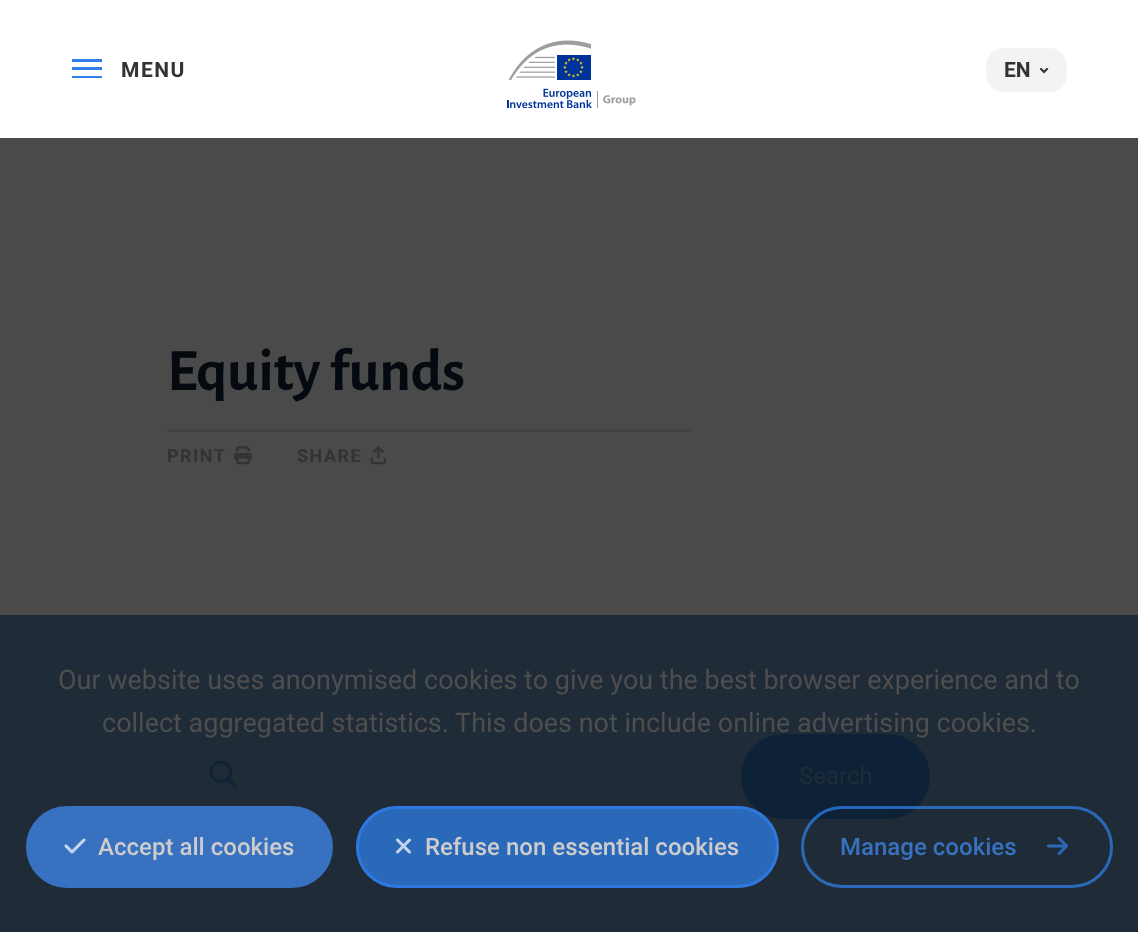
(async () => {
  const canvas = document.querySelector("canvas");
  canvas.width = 1138;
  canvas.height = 932;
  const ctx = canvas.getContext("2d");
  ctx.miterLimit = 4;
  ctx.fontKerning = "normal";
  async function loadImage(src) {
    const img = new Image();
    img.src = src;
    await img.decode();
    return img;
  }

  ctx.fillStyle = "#4a4a4a";
  ctx.fillRect(0, 0, 1138, 932);
  for (const [x, y, w, h, color] of [
    [0, 0, 1138, 138, "#ffffff"],
    [72, 59, 30, 3, "#2f80ed"],
    [72, 67, 30, 3, "#2f80ed"],
    [72, 76, 30, 2, "#2f80ed"],
  ]) {
    ctx.fillStyle = color;
    ctx.fillRect(x, y, w, h);
  }
  ctx.drawImage(await loadImage("img/1.png"), 507, 40, 129, 68);
  ctx.fillStyle = "#f1f3f5";
  ctx.beginPath();
  ctx.roundRect(987, 49, 79, 42, 17);
  ctx.fill();
  ctx.strokeStyle = "#f1f3f5";
  ctx.lineWidth = 2;
  ctx.stroke();
  ctx.drawImage(await loadImage("img/2.png"), 1040, 68, 9, 6);
  ctx.fillStyle = "#434343";
  ctx.fillRect(167, 429, 525, 3);
  ctx.drawImage(await loadImage("img/3.png"), 234, 446, 18, 19);
  ctx.drawImage(await loadImage("img/4.png"), 370, 446, 17, 19);
  ctx.fillStyle = "#1f2c38";
  ctx.fillRect(0, 615, 1138, 317);
  ctx.fillStyle = "#3771bf";
  ctx.beginPath();
  ctx.roundRect(27.5, 807.5, 304, 79, 39.5);
  ctx.fill();
  ctx.strokeStyle = "#3771bf";
  ctx.lineWidth = 3;
  ctx.stroke();
  ctx.drawImage(await loadImage("img/5.png"), 64, 838, 22, 16);
  ctx.fillStyle = "#0e2237";
  ctx.beginPath();
  ctx.roundRect(742.5, 735.5, 186, 82, 41);
  ctx.fill();
  ctx.strokeStyle = "#0e2237";
  ctx.stroke();
  ctx.fillStyle = "#2a68ba";
  ctx.beginPath();
  ctx.roundRect(356, 806, 423, 82, 41);
  ctx.fill();
  ctx.beginPath();
  ctx.roundRect(357.5, 807.5, 420, 79, 39.5);
  ctx.strokeStyle = "rgba(47, 128, 237, 0.72)";
  ctx.stroke();
  ctx.drawImage(await loadImage("img/6.png"), 396, 838, 15, 16);
  ctx.beginPath();
  ctx.roundRect(802.5, 807.5, 309, 79, 39.5);
  ctx.stroke();
  ctx.drawImage(await loadImage("img/7.png"), 1047, 837, 21, 18);
  ctx.drawImage(await loadImage("img/8.png"), 210, 760, 27, 28);
  ctx.letterSpacing = "1.5px";
  ctx.font = "bold 21px Roboto";
  ctx.fillStyle = "#333333";
  ctx.fillText("MENU", 121, 77);
  ctx.letterSpacing = "0px";
  ctx.fillText("EN", 1004, 77);
  ctx.letterSpacing = "-0.25px";
  ctx.font = "bold 60px Alegreya Sans";
  ctx.fillStyle = "#040a0f";
  ctx.fillText("Equity funds", 167, 390);
  ctx.letterSpacing = "1.5px";
  ctx.font = "bold 18px Roboto";
  ctx.fillStyle = "#333333";
  ctx.fillText("PRINT", 167, 462);
  ctx.fillText("SHARE", 297, 462);
  ctx.letterSpacing = "0px";
  ctx.font = "27px Roboto";
  ctx.fillStyle = "#4e4e4e";
  ctx.fillText("Our website uses anonymised cookies to give you the best browser experience and to", 58, 689);
  ctx.fillText("collect aggregated statistics. This does not include online advertising cookies.", 102, 732);
  ctx.font = "500 24px Roboto";
  ctx.fillStyle = "#cccccc";
  ctx.fillText("Accept all cookies", 98, 855);
  ctx.fillText("Refuse non essential cookies", 425, 855);
  ctx.fillStyle = "#3771bf";
  ctx.fillText("Manage cookies", 840, 855);
  ctx.font = "24px Roboto";
  ctx.fillStyle = "#202d39";
  ctx.fillText("Search", 799, 784);
})();
